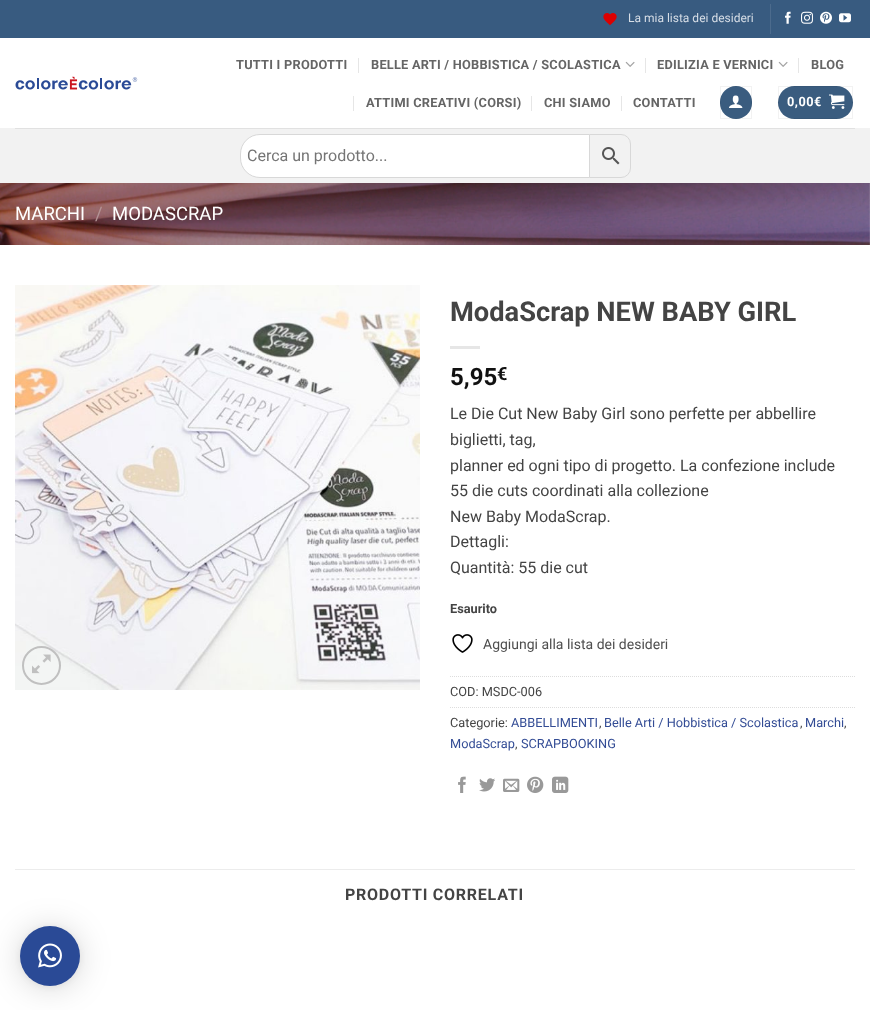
(async () => {
  const canvas = document.querySelector("canvas");
  canvas.width = 870;
  canvas.height = 1010;
  const ctx = canvas.getContext("2d");
  ctx.miterLimit = 4;
  ctx.fontKerning = "normal";
  async function loadImage(src) {
    const img = new Image();
    img.src = src;
    await img.decode();
    return img;
  }
  let path;

  ctx.fillStyle = "#ffffff";
  ctx.fillRect(0, 0, 870, 1010);
  ctx.fillStyle = "#385b80";
  ctx.fillRect(0, 0, 870, 38);
  ctx.drawImage(await loadImage("img/1.png"), 603, 13, 14, 13);
  ctx.fillStyle = "#4c6b8d";
  ctx.fillRect(770, 4, 1, 30);
  ctx.drawImage(await loadImage("img/2.png"), 785, 11, 6, 13);
  ctx.drawImage(await loadImage("img/3.png"), 801, 11, 12, 13);
  ctx.drawImage(await loadImage("img/4.png"), 820, 11, 12, 13);
  ctx.drawImage(await loadImage("img/5.png"), 839, 13, 12, 10);
  ctx.drawImage(await loadImage("img/6.png"), 15, 76, 123, 14);
  ctx.fillStyle = "#e6e6e6";
  ctx.fillRect(358, 58, 1, 15);
  ctx.drawImage(await loadImage("img/7.png"), 625, 61, 10, 6);
  ctx.fillRect(645, 58, 1, 15);
  ctx.drawImage(await loadImage("img/7.png"), 778, 61, 10, 6);
  for (const [x, y, w, h, color] of [
    [798, 58, 1, 15, "#e6e6e6"],
    [353, 96, 1, 15, "#e6e6e6"],
    [531, 96, 1, 15, "#e6e6e6"],
    [621, 96, 1, 15, "#e6e6e6"],
  ]) {
    ctx.fillStyle = color;
    ctx.fillRect(x, y, w, h);
  }
  ctx.fillStyle = "#3a5c7f";
  ctx.beginPath();
  ctx.roundRect(720, 86, 32, 33, 16);
  ctx.fill();
  ctx.strokeStyle = "rgba(0, 0, 0, 0.05)";
  ctx.strokeRect(720.5, 86.5, 31, 32);
  ctx.drawImage(await loadImage("img/8.png"), 729, 95, 14, 13);
  ctx.beginPath();
  ctx.roundRect(778, 86, 75, 33, 16.5);
  ctx.fill();
  ctx.strokeRect(778.5, 86.5, 74, 32);
  ctx.drawImage(await loadImage("img/9.png"), 829, 94, 16, 15);
  ctx.fillStyle = "#f2f2f2";
  ctx.fillRect(0, 128, 870, 55);
  ctx.fillStyle = "#e1e1e1";
  ctx.fillRect(15, 128, 840, 1);
  ctx.beginPath();
  ctx.roundRect(589.5, 134.5, 41, 43, [0, 9.5, 9.5, 0]);
  ctx.strokeStyle = "#d8d8d8";
  ctx.stroke();
  ctx.fillStyle = "#ffffff";
  ctx.beginPath();
  ctx.roundRect(240.5, 134.5, 349, 43, [19.5, 0, 0, 19.5]);
  ctx.fill();
  ctx.stroke();
  ctx.drawImage(await loadImage("img/10.png"), 602, 147, 18, 18);
  ctx.drawImage(await loadImage("img/11.png"), 0, 183, 870, 62);
  ctx.drawImage(await loadImage("img/12.png"), 15, 285, 405, 405);
  ctx.beginPath();
  ctx.arc(41.5, 665.5, 18.5, 0, Math.PI * 2);
  ctx.strokeStyle = "#c0c0c0";
  ctx.lineWidth = 2;
  ctx.stroke();
  ctx.drawImage(await loadImage("img/13.png"), 32, 654, 19, 20);
  ctx.fillStyle = "#e6e6e6";
  ctx.fillRect(450, 346, 30, 3);
  ctx.drawImage(await loadImage("img/14.png"), 452, 634, 21, 19);
  path = new Path2D("M450 676.5H855");
  ctx.strokeStyle = "#dddddd";
  ctx.lineWidth = 1;
  ctx.setLineDash([1, 1]);
  ctx.stroke(path);
  path = new Path2D("M450 707.5H855");
  ctx.stroke(path);
  ctx.drawImage(await loadImage("img/15.png"), 458, 776, 8, 17);
  ctx.drawImage(await loadImage("img/16.png"), 479, 778, 16, 14);
  ctx.drawImage(await loadImage("img/17.png"), 503, 778, 17, 14);
  ctx.drawImage(await loadImage("img/18.png"), 527, 776, 17, 17);
  ctx.drawImage(await loadImage("img/19.png"), 552, 776, 17, 17);
  ctx.fillStyle = "#ececec";
  ctx.fillRect(15, 869, 840, 1);
  ctx.fillStyle = "rgba(0, 0, 0, 0.16)";
  ctx.filter = "blur(16px)";
  ctx.beginPath();
  ctx.roundRect(20, 928, 60, 60, 30);
  ctx.fill();
  ctx.filter = "none";
  ctx.fillStyle = "rgba(0, 0, 0, 0.06)";
  ctx.filter = "blur(3px)";
  ctx.beginPath();
  ctx.roundRect(20, 927, 60, 60, 30);
  ctx.fill();
  ctx.filter = "none";
  ctx.fillStyle = "#2a4a96";
  ctx.beginPath();
  ctx.arc(50, 956, 30, 0, Math.PI * 2);
  ctx.fill();
  ctx.drawImage(await loadImage("img/20.png"), 38, 943, 24, 25);
  ctx.font = "12px Roboto";
  ctx.fillStyle = "#d7dee6";
  ctx.fillText("La mia lista dei desideri", 628, 22);
  ctx.letterSpacing = "0.25px";
  ctx.font = "bold 12.75px Roboto";
  ctx.fillStyle = "#656565";
  for (const [text, x, y] of [
    ["TUTTI I PRODOTTI", 236, 69],
    ["BELLE ARTI / HOBBISTICA / SCOLASTICA", 371, 69],
    ["EDILIZIA E VERNICI", 657, 69],
    ["BLOG", 811, 69],
    ["ATTIMI CREATIVI (CORSI)", 366, 107],
    ["CHI SIAMO", 544, 107],
    ["CONTATTI", 633, 107],
  ]) {
    ctx.fillText(text, x, y);
  }
  ctx.letterSpacing = "0.5px";
  ctx.fillStyle = "#ffffff";
  ctx.fillText("0,00€", 787, 106);
  ctx.letterSpacing = "0px";
  ctx.font = "16px Roboto";
  ctx.fillStyle = "#757575";
  ctx.fillText("Cerca un prodotto...", 247, 161);
  ctx.font = "18.5px Roboto";
  ctx.fillStyle = "#ffffff";
  ctx.fillText("MARCHI", 15, 220);
  ctx.fillStyle = "#b39395";
  ctx.fillText("/", 95, 220);
  ctx.fillStyle = "#ffffff";
  ctx.fillText("MODASCRAP", 112, 220);
  ctx.font = "bold 27.25px Roboto";
  ctx.fillStyle = "#444444";
  ctx.fillText("ModaScrap NEW BABY GIRL", 450, 321);
  ctx.font = "bold 24px Roboto";
  ctx.fillStyle = "#111111";
  ctx.fillText("5,95", 450, 385);
  ctx.font = "bold 18px Roboto";
  ctx.fillText("€", 497, 380);
  ctx.font = "16px Roboto";
  ctx.fillStyle = "#444444";
  for (const [text, x, y] of [
    ["Le Die Cut New Baby Girl sono perfette per abbellire", 450, 419],
    ["biglietti, tag,", 450, 445],
    ["planner ed ogni tipo di progetto. La confezione include", 450, 471],
    ["55 die cuts coordinati alla collezione", 450, 496],
    ["New Baby ModaScrap.", 450, 522],
    ["Dettagli:", 450, 547],
    ["Quantità: 55 die cut", 450, 573],
  ]) {
    ctx.fillText(text, x, y);
  }
  ctx.font = "bold 12.75px Roboto";
  ctx.fillText("Esaurito", 450, 613);
  ctx.font = "14px Roboto";
  ctx.fillStyle = "#4e4e4e";
  ctx.fillText("Aggiungi alla lista dei desideri", 483, 649);
  ctx.font = "12.75px Roboto";
  ctx.fillStyle = "#444444";
  ctx.fillText("COD: MSDC-006", 450, 696);
  ctx.fillText("Categorie:", 450, 727);
  ctx.fillStyle = "#334c95";
  ctx.fillText("ABBELLIMENTI", 511, 727);
  ctx.fillStyle = "#444444";
  ctx.fillText(",", 599, 727);
  ctx.fillStyle = "#334c95";
  ctx.fillText("Belle Arti / Hobbistica / Scolastica", 604, 727);
  ctx.fillStyle = "#444444";
  ctx.fillText(",", 800, 727);
  ctx.fillStyle = "#334c95";
  ctx.fillText("Marchi", 805, 727);
  ctx.fillStyle = "#444444";
  ctx.fillText(",", 844, 727);
  ctx.fillStyle = "#334c95";
  ctx.fillText("ModaScrap", 450, 748);
  ctx.fillStyle = "#444444";
  ctx.fillText(",", 515, 748);
  ctx.fillStyle = "#334c95";
  ctx.fillText("SCRAPBOOKING", 521, 748);
  ctx.letterSpacing = "0.75px";
  ctx.font = "bold 16px Roboto";
  ctx.fillStyle = "#444444";
  ctx.fillText("PRODOTTI CORRELATI", 345, 900);
})();
